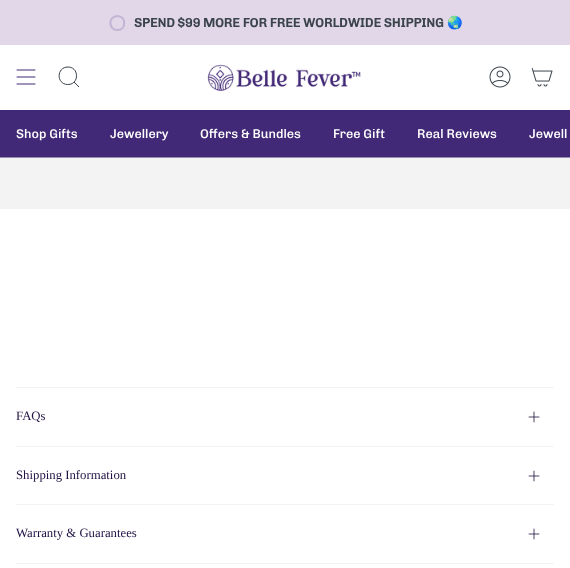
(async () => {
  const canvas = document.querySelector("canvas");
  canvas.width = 570;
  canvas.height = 568;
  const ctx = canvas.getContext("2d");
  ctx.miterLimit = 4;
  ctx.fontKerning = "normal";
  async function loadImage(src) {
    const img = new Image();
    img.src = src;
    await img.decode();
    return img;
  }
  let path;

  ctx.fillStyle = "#ffffff";
  ctx.fillRect(0, 0, 570, 568);
  ctx.fillStyle = "#e1d7e9";
  ctx.fillRect(0, 0, 570, 45);
  path = new Path2D("M117.5 16C108 16 108 30 117.5 30C126.5 30 126.5 16 117.5 16Z");
  ctx.strokeStyle = "#c1b4d2";
  ctx.lineWidth = 2;
  ctx.stroke(path);
  path = new Path2D("M17 70H35M17 77H35M17 84H35");
  ctx.strokeStyle = "#412977";
  ctx.lineWidth = 1;
  ctx.lineCap = "round";
  ctx.lineJoin = "round";
  ctx.stroke(path);
  path = new Path2D("M68 67C79.5 67 79.5 85 67.5 84.5C56 84 56.5 67 68 67ZM74 82L79 87");
  ctx.strokeStyle = "#3b434b";
  ctx.lineCap = "butt";
  ctx.lineJoin = "miter";
  ctx.stroke(path);
  ctx.drawImage(await loadImage("img/1.png"), 207, 64, 154, 27);
  ctx.drawImage(await loadImage("img/2.png"), 489, 66, 22, 22);
  ctx.drawImage(await loadImage("img/3.png"), 531, 68, 22, 19);
  for (const [x, y, w, h, color] of [
    [0, 110, 570, 47, "#412977"],
    [0, 157, 570, 1, "#9a8eb5"],
    [0, 158, 570, 51, "#f3f3f3"],
    [16, 387, 538, 1, "#f3f3f3"],
  ]) {
    ctx.fillStyle = color;
    ctx.fillRect(x, y, w, h);
  }
  ctx.drawImage(await loadImage("img/4.png"), 528, 411, 12, 12);
  ctx.fillRect(16, 446, 538, 1);
  ctx.drawImage(await loadImage("img/4.png"), 528, 470, 12, 12);
  ctx.fillRect(16, 504, 538, 1);
  ctx.fillRect(16, 563, 538, 1);
  ctx.drawImage(await loadImage("img/4.png"), 528, 528, 12, 12);
  ctx.font = "bold 12.6px Chivo";
  ctx.fillStyle = "#3b434b";
  ctx.fillText("SPEND $99 MORE FOR FREE WORLDWIDE SHIPPING", 134, 27);
  ctx.font = "bold 12.6px Noto Color Emoji";
  ctx.fillText("🌏", 447, 27);
  ctx.font = "500 12.6px Chivo";
  ctx.fillStyle = "#ffffff";
  for (const [text, x, y] of [
    ["Shop Gifts", 16, 138],
    ["Jewellery", 110, 138],
    ["Offers & Bundles", 200, 138],
    ["Free Gift", 333, 138],
    ["Real Reviews", 417, 138],
    ["Jewell", 529, 138],
  ]) {
    ctx.fillText(text, x, y);
  }
  ctx.font = "12.75px Liberation Serif";
  ctx.fillStyle = "#201142";
  for (const [text, x, y] of [
    ["FAQs", 16, 420],
    ["Shipping Information", 16, 479],
    ["Warranty & Guarantees", 16, 537],
  ]) {
    ctx.fillText(text, x, y);
  }
})();
